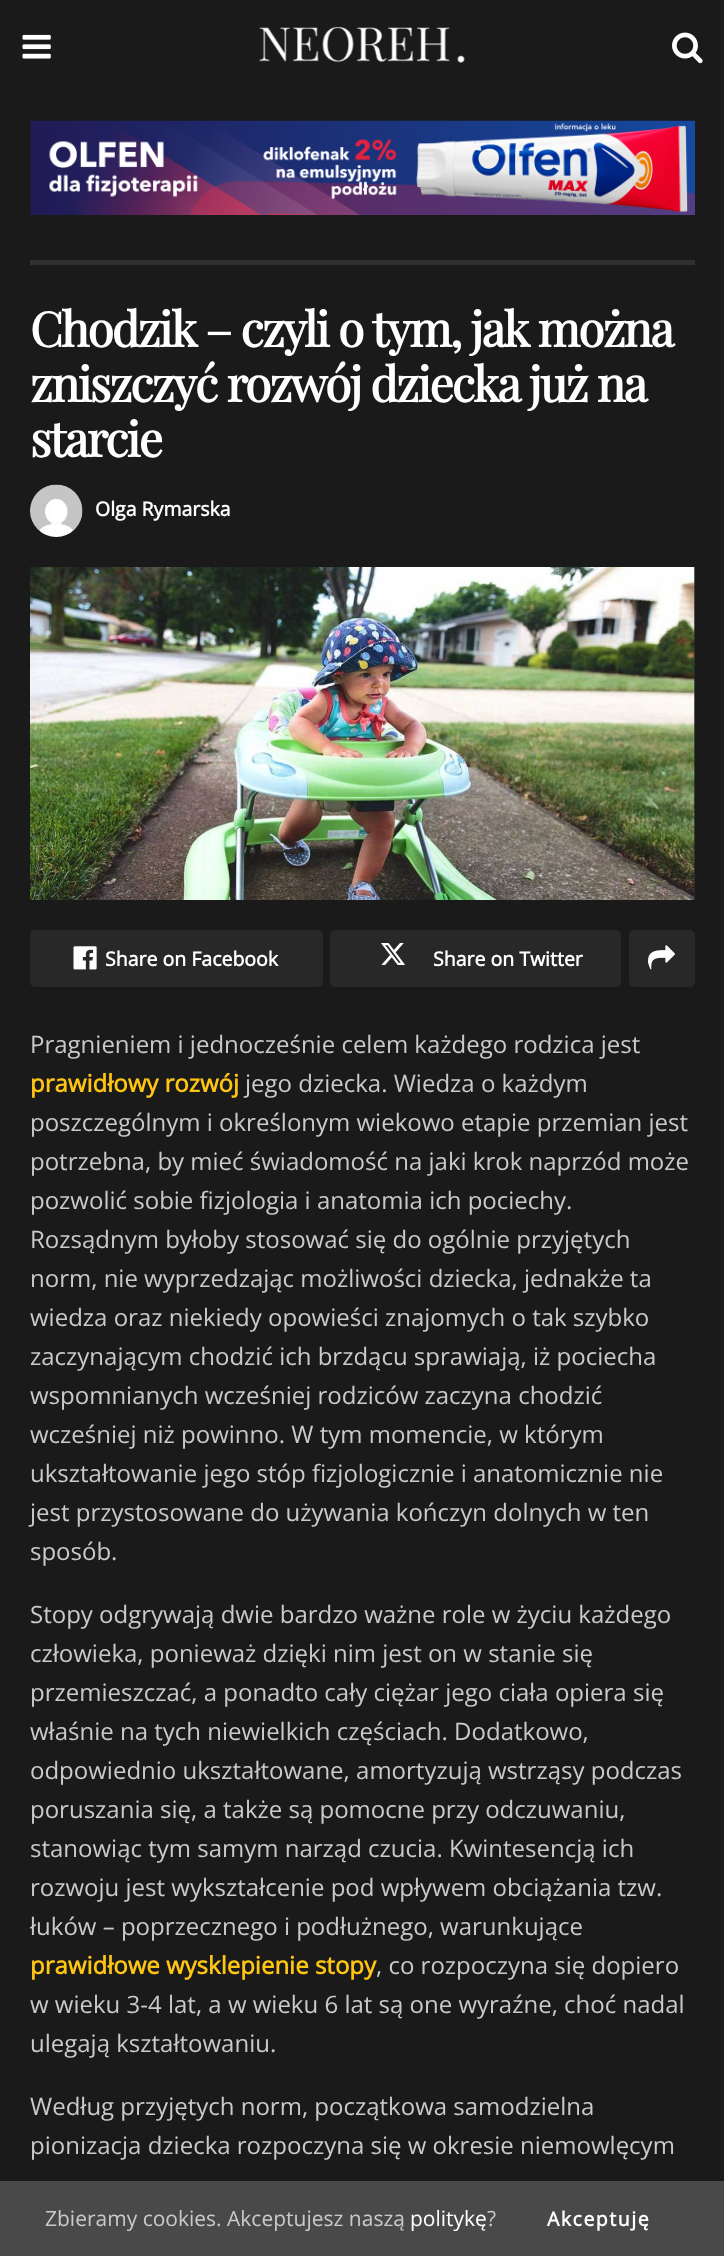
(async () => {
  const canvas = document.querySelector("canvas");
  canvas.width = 724;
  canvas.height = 2256;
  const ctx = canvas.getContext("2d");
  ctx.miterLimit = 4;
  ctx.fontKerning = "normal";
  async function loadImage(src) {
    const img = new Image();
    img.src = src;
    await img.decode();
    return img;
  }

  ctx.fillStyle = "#1a1a1a";
  ctx.fillRect(0, 0, 724, 2256);
  ctx.drawImage(await loadImage("img/1.png"), 22, 34, 29, 25);
  ctx.drawImage(await loadImage("img/2.png"), 259, 27, 206, 36);
  ctx.drawImage(await loadImage("img/3.png"), 672, 32, 31, 32);
  ctx.drawImage(await loadImage("img/4.png"), 30, 120, 665, 95);
  ctx.fillStyle = "#303030";
  ctx.fillRect(30, 260, 665, 5);
  ctx.drawImage(await loadImage("img/5.png"), 30, 484, 53, 53);
  ctx.fillStyle = "#282828";
  ctx.fillRect(694, 567, 1, 333);
  ctx.drawImage(await loadImage("img/6.png"), 30, 567, 665, 333);
  ctx.beginPath();
  ctx.roundRect(30, 930, 293, 57, 5);
  ctx.fill();
  ctx.drawImage(await loadImage("img/7.png"), 73, 946, 24, 24);
  ctx.beginPath();
  ctx.roundRect(330, 930, 291, 57, 5);
  ctx.fill();
  ctx.drawImage(await loadImage("img/8.png"), 381, 943, 25, 22);
  ctx.beginPath();
  ctx.roundRect(629, 930, 66, 57, 5);
  ctx.fill();
  ctx.drawImage(await loadImage("img/9.png"), 648, 945, 27, 25);
  ctx.fillStyle = "#494949";
  ctx.fillRect(0, 2181, 724, 75);
  ctx.letterSpacing = "-1.9px";
  ctx.font = "bold 48px Playfair Display";
  ctx.fillStyle = "#ffffff";
  for (const [text, x, y] of [
    ["Chodzik – czyli o tym, jak można", 30, 347],
    ["zniszczyć rozwój dziecka już na", 30, 402],
    ["starcie", 30, 457],
  ]) {
    ctx.fillText(text, x, y);
  }
  ctx.letterSpacing = "0px";
  ctx.font = "bold 19.5px Open Sans";
  for (const [text, x, y] of [
    ["Olga Rymarska", 95, 516],
    ["Share on Facebook", 105, 966],
    ["Share on Twitter", 433, 966],
  ]) {
    ctx.fillText(text, x, y);
  }
  ctx.font = "24px Open Sans";
  ctx.fillStyle = "#cacaca";
  ctx.fillText("Pragnieniem i jednocześnie celem każdego rodzica jest", 30, 1053);
  ctx.font = "bold 24px Open Sans";
  ctx.fillStyle = "#ffc513";
  ctx.fillText("prawidłowy rozwój", 30, 1092);
  ctx.font = "24px Open Sans";
  ctx.fillStyle = "#cacaca";
  for (const [text, x, y] of [
    ["jego dziecka. Wiedza o każdym", 245, 1092],
    ["poszczególnym i określonym wiekowo etapie przemian jest", 30, 1131],
    ["potrzebna, by mieć świadomość na jaki krok naprzód może", 30, 1170],
    ["pozwolić sobie fizjologia i anatomia ich pociechy.", 30, 1209],
    ["Rozsądnym byłoby stosować się do ogólnie przyjętych", 30, 1248],
    ["norm, nie wyprzedzając możliwości dziecka, jednakże ta", 30, 1287],
    ["wiedza oraz niekiedy opowieści znajomych o tak szybko", 30, 1326],
    ["zaczynającym chodzić ich brzdącu sprawiają, iż pociecha", 30, 1365],
    ["wspomnianych wcześniej rodziców zaczyna chodzić", 30, 1404],
    ["wcześniej niż powinno. W tym momencie, w którym", 30, 1443],
    ["ukształtowanie jego stóp fizjologicznie i anatomicznie nie", 30, 1482],
    ["jest przystosowane do używania kończyn dolnych w ten", 30, 1521],
    ["sposób.", 30, 1560],
    ["Stopy odgrywają dwie bardzo ważne role w życiu każdego", 30, 1623],
    ["człowieka, ponieważ dzięki nim jest on w stanie się", 30, 1662],
    ["przemieszczać, a ponadto cały ciężar jego ciała opiera się", 30, 1701],
    ["właśnie na tych niewielkich częściach. Dodatkowo,", 30, 1740],
    ["odpowiednio ukształtowane, amortyzują wstrząsy podczas", 30, 1779],
    ["poruszania się, a także są pomocne przy odczuwaniu,", 30, 1818],
    ["stanowiąc tym samym narząd czucia. Kwintesencją ich", 30, 1857],
    ["rozwoju jest wykształcenie pod wpływem obciążania tzw.", 30, 1896],
    ["łuków – poprzecznego i podłużnego, warunkujące", 30, 1935],
  ]) {
    ctx.fillText(text, x, y);
  }
  ctx.font = "bold 24px Open Sans";
  ctx.fillStyle = "#ffc513";
  ctx.fillText("prawidłowe wysklepienie stopy", 30, 1974);
  ctx.font = "24px Open Sans";
  ctx.fillStyle = "#cacaca";
  for (const [text, x, y] of [
    [", co rozpoczyna się dopiero", 376, 1974],
    ["w wieku 3-4 lat, a w wieku 6 lat są one wyraźne, choć nadal", 30, 2013],
    ["ulegają kształtowaniu.", 30, 2052],
    ["Według przyjętych norm, początkowa samodzielna", 30, 2115],
    ["pionizacja dziecka rozpoczyna się w okresie niemowlęcym", 30, 2154],
  ]) {
    ctx.fillText(text, x, y);
  }
  ctx.font = "21px Open Sans";
  ctx.fillText("Zbieramy cookies. Akceptujesz naszą", 45, 2226);
  ctx.fillStyle = "#ffffff";
  ctx.fillText("politykę", 410, 2226);
  ctx.fillStyle = "#cacaca";
  ctx.fillText("?", 487, 2226);
  ctx.letterSpacing = "1.5px";
  ctx.font = "bold 19.5px Open Sans";
  ctx.fillStyle = "#ffffff";
  ctx.fillText("Akceptuję", 547, 2226);
})();
